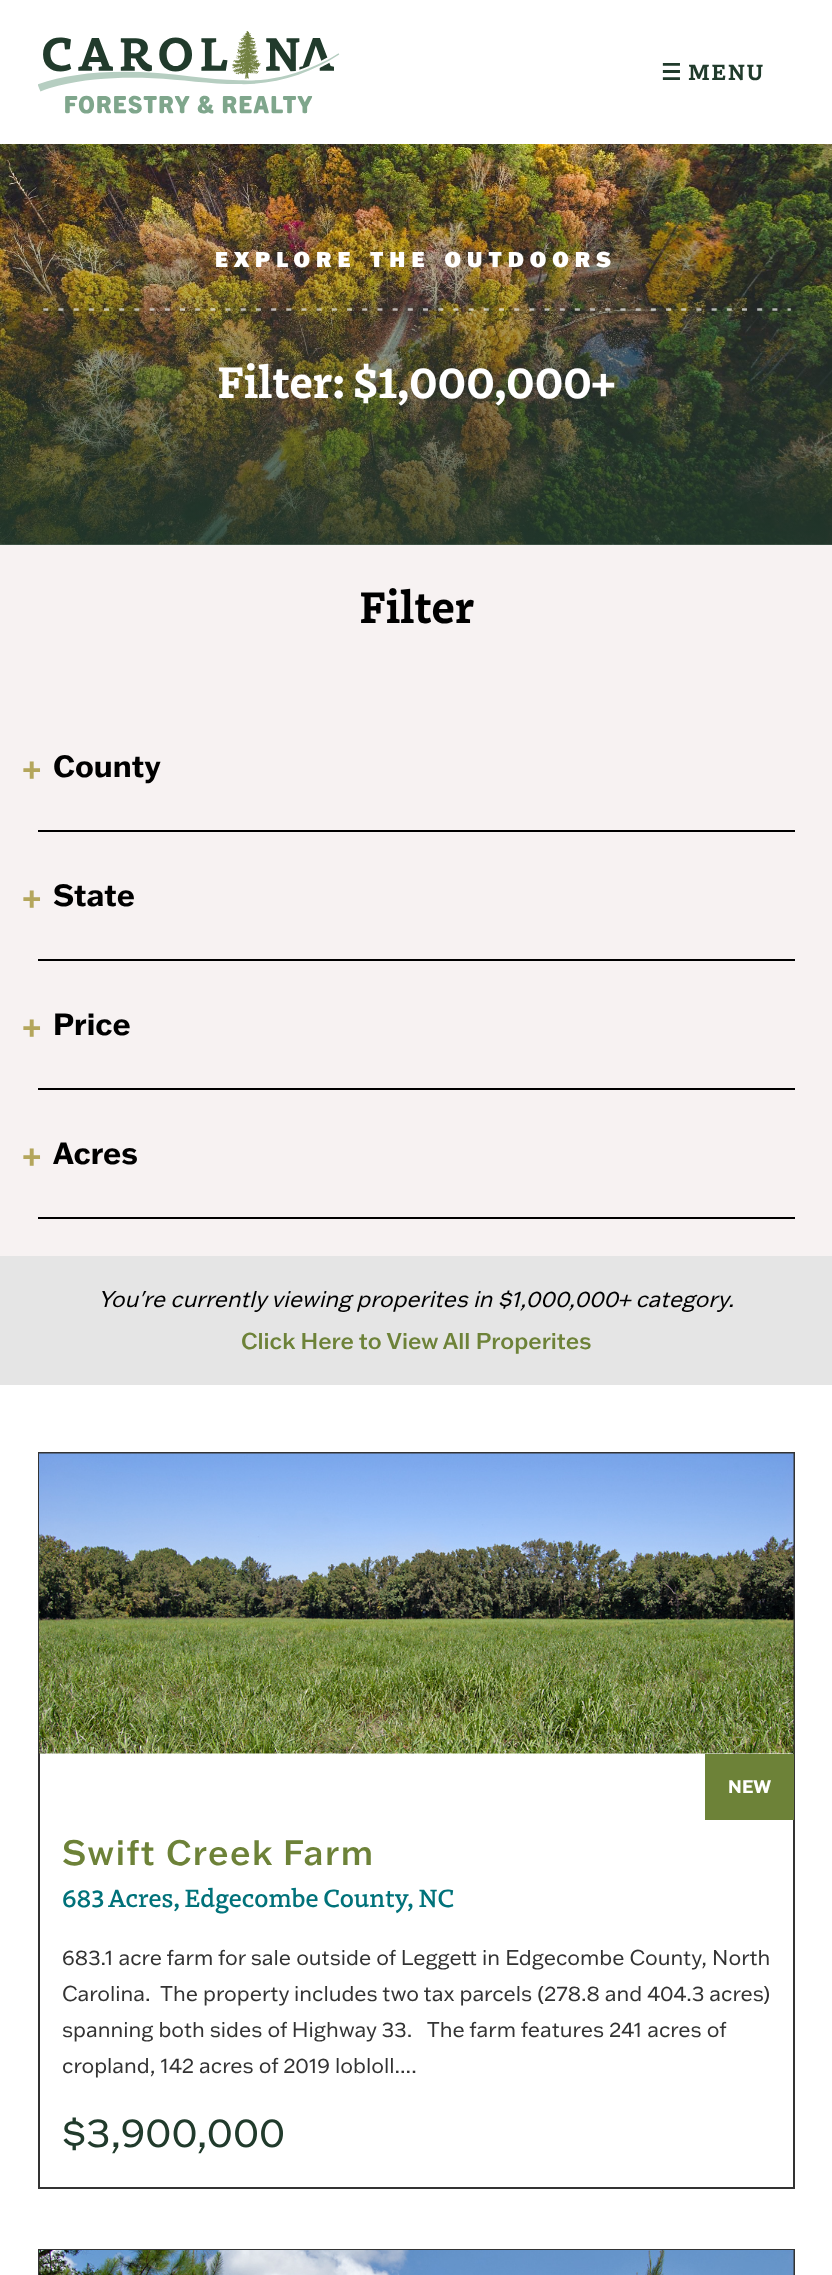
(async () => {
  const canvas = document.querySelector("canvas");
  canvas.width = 832;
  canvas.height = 2275;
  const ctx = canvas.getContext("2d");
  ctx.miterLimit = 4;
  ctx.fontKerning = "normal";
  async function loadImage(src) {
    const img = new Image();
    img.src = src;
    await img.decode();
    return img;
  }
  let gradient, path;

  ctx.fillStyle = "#ffffff";
  ctx.fillRect(0, 0, 832, 2275);
  ctx.drawImage(await loadImage("img/1.png"), 38, 31, 302, 83);
  ctx.drawImage(await loadImage("img/2.png"), 0, 144, 832, 401);
  gradient = ctx.createLinearGradient(416, 144, 416, 545);
  gradient.addColorStop(0, "rgba(33, 59, 44, 0)");
  gradient.addColorStop(1, "rgba(33, 59, 44, 0.8)");
  ctx.fillStyle = gradient;
  ctx.fillRect(0, 155, 832, 390);
  path = new Path2D("M44.5 309.5H789.5");
  ctx.strokeStyle = "rgba(241, 241, 241, 0.7)";
  ctx.lineWidth = 2.5;
  ctx.lineCap = "square";
  ctx.setLineDash([2.53, 12.66]);
  ctx.stroke(path);
  for (const [x, y, w, h, color] of [
    [0, 545, 832, 711, "#f7f2f2"],
    [38, 830, 757, 2, "#000000"],
    [38, 959, 757, 2, "#000000"],
    [38, 1088, 757, 2, "#000000"],
    [38, 1217, 757, 2, "#000000"],
    [0, 1256, 832, 129, "#e5e5e5"],
  ]) {
    ctx.fillStyle = color;
    ctx.fillRect(x, y, w, h);
  }
  ctx.strokeStyle = "#333333";
  ctx.lineWidth = 2;
  ctx.setLineDash([]);
  ctx.strokeRect(39, 1453, 755, 735);
  ctx.drawImage(await loadImage("img/3.png"), 39, 1453, 755, 301);
  ctx.fillStyle = "#6d8238";
  ctx.fillRect(705, 1754, 89, 66);
  ctx.strokeRect(39, 2250, 755, 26);
  ctx.drawImage(await loadImage("img/4.png"), 39, 2250, 755, 25);
  ctx.letterSpacing = "1.5px";
  ctx.font = "bold 22.5px DejaVu Sans";
  ctx.fillStyle = "#213b2c";
  ctx.fillText("☰", 661, 80);
  ctx.font = "bold 22.5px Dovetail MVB";
  ctx.fillText("MENU", 688, 80);
  ctx.letterSpacing = "6px";
  ctx.wordSpacing = "4px";
  ctx.font = "900 21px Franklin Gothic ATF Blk";
  ctx.fillStyle = "#ffffff";
  ctx.fillText("EXPLORE THE OUTDOORS", 215, 267);
  ctx.letterSpacing = "0px";
  ctx.wordSpacing = "0px";
  ctx.font = "bold 45px Dovetail MVB";
  ctx.fillText("Filter: $1,000,000+", 217, 398);
  ctx.fillStyle = "#000000";
  ctx.fillText("Filter", 359, 623);
  ctx.font = "bold 34.5px Dovetail MVB";
  ctx.fillStyle = "#b4a65c";
  ctx.fillText("+", 23, 780);
  ctx.font = "bold 30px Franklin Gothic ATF";
  ctx.fillStyle = "#000000";
  ctx.fillText("County", 53, 777);
  ctx.font = "bold 34.5px Dovetail MVB";
  ctx.fillStyle = "#b4a65c";
  ctx.fillText("+", 23, 909);
  ctx.font = "bold 30px Franklin Gothic ATF";
  ctx.fillStyle = "#000000";
  ctx.fillText("State", 53, 906);
  ctx.font = "bold 34.5px Dovetail MVB";
  ctx.fillStyle = "#b4a65c";
  ctx.fillText("+", 23, 1038);
  ctx.font = "bold 30px Franklin Gothic ATF";
  ctx.fillStyle = "#000000";
  ctx.fillText("Price", 53, 1035);
  ctx.font = "bold 34.5px Dovetail MVB";
  ctx.fillStyle = "#b4a65c";
  ctx.fillText("+", 23, 1167);
  ctx.font = "bold 30px Franklin Gothic ATF";
  ctx.fillStyle = "#000000";
  ctx.fillText("Acres", 53, 1164);
  ctx.font = "italic 22.5px Franklin Gothic ATF";
  ctx.fillText("You're currently viewing properites in $1,000,000+ category.", 98, 1307);
  ctx.font = "500 22.5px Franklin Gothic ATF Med";
  ctx.fillStyle = "#6d8238";
  ctx.fillText("Click Here to View All Properites", 241, 1349);
  ctx.font = "bold 18px Franklin Gothic ATF";
  ctx.fillStyle = "#ffffff";
  ctx.fillText("NEW", 728, 1793);
  ctx.letterSpacing = "1.5px";
  ctx.font = "500 34.5px Franklin Gothic ATF Med";
  ctx.fillStyle = "#6d8238";
  ctx.fillText("Swift Creek Farm", 62, 1865);
  ctx.letterSpacing = "0px";
  ctx.font = "500 25.5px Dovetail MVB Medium";
  ctx.fillStyle = "#00727a";
  ctx.fillText("683 Acres, Edgecombe County, NC", 62, 1907);
  ctx.font = "21px Franklin Gothic ATF";
  ctx.fillStyle = "#333333";
  for (const [text, x, y] of [
    ["683.1 acre farm for sale outside of Leggett in Edgecombe County, North", 62, 1965],
    ["Carolina.  The property includes two tax parcels (278.8 and 404.3 acres)", 62, 2001],
    ["spanning both sides of Highway 33.   The farm features 241 acres of", 62, 2037],
    ["cropland, 142 acres of 2019 lobloll....", 62, 2073],
  ]) {
    ctx.fillText(text, x, y);
  }
  ctx.font = "40.5px Franklin Gothic ATF";
  ctx.fillStyle = "#213b2c";
  ctx.fillText("$3,900,000", 62, 2147);
})();
